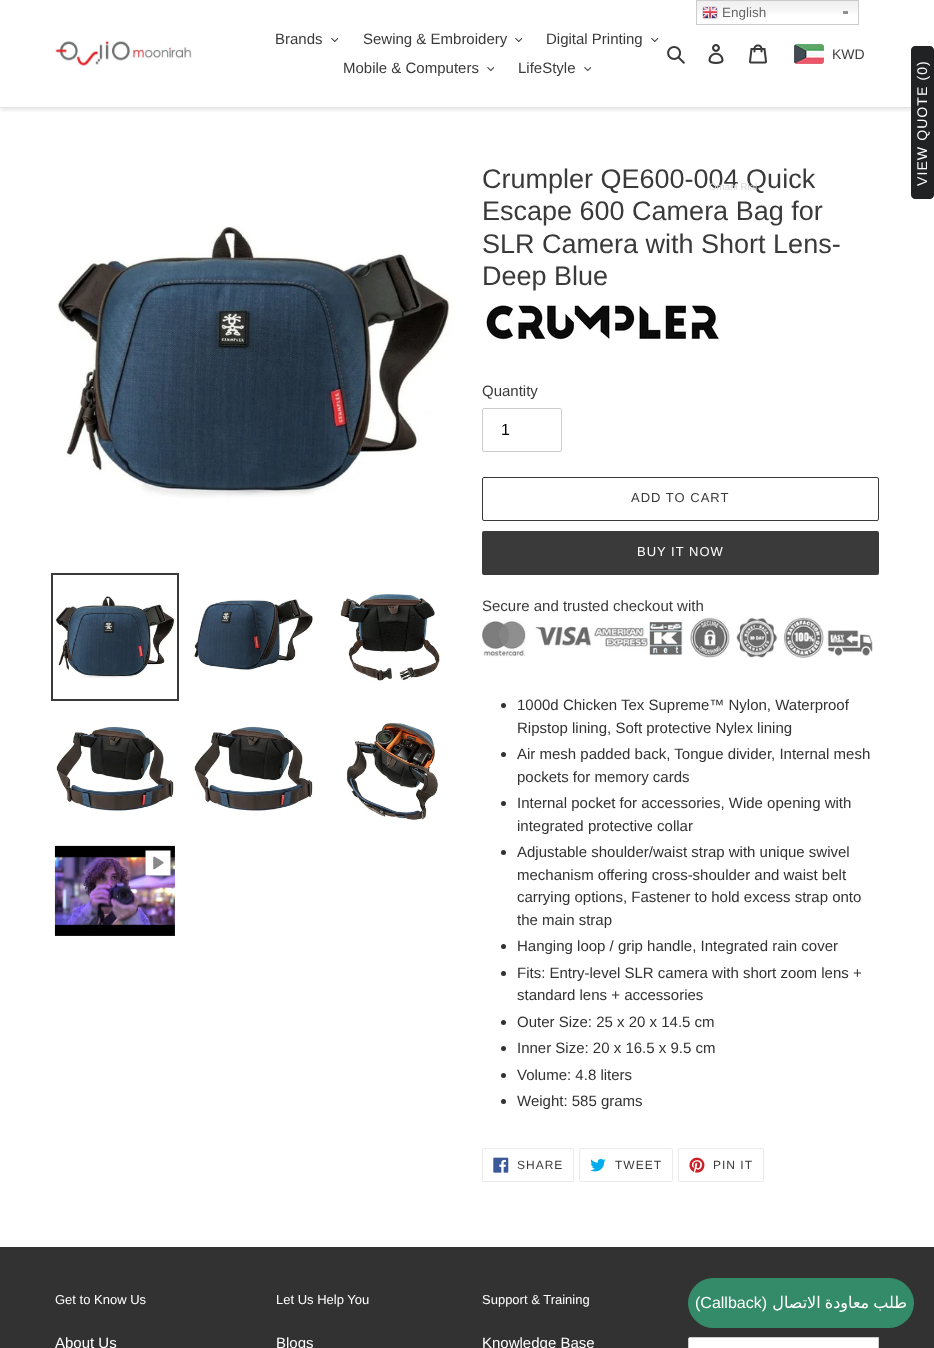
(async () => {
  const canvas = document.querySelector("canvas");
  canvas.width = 934;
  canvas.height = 1348;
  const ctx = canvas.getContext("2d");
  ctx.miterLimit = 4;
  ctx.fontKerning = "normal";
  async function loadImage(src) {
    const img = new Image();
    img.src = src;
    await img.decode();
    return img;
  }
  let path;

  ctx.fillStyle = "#ffffff";
  ctx.fillRect(0, 0, 934, 1348);
  ctx.save();
  ctx.beginPath();
  ctx.rect(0, 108, 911, 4);
  ctx.clip();
  ctx.fillStyle = "rgba(0, 0, 0, 0.1)";
  ctx.filter = "blur(2px)";
  ctx.beginPath();
  ctx.rect(0, 2, 934, 108);
  ctx.fill();
  ctx.filter = "none";
  ctx.restore();
  ctx.drawImage(await loadImage("img/1.png"), 697, 1, 161, 13);
  ctx.fillStyle = "#8f8f8f";
  ctx.fillRect(843, 11, 5, 3);
  ctx.strokeStyle = "#cccccc";
  ctx.strokeRect(696.5, 0.5, 162, 24);
  ctx.drawImage(await loadImage("img/2.png"), 702, 6, 16, 14);
  ctx.fillStyle = "#e5e5e5";
  ctx.fillRect(0, 107, 911, 1);
  ctx.drawImage(await loadImage("img/3.png"), 55, 40, 137, 26);
  ctx.drawImage(await loadImage("img/4.png"), 331, 38, 7, 4);
  ctx.drawImage(await loadImage("img/4.png"), 515, 38, 7, 4);
  ctx.drawImage(await loadImage("img/5.png"), 651, 38, 8, 4);
  ctx.drawImage(await loadImage("img/4.png"), 487, 67, 7, 4);
  ctx.drawImage(await loadImage("img/4.png"), 584, 67, 7, 4);
  ctx.drawImage(await loadImage("img/6.png"), 667, 46, 18, 18);
  ctx.drawImage(await loadImage("img/7.png"), 708, 44, 16, 20);
  ctx.drawImage(await loadImage("img/8.png"), 749, 44, 18, 20);
  ctx.drawImage(await loadImage("img/9.png"), 794, 44, 30, 20);
  ctx.fillStyle = "#202223";
  path = new Path2D("M911 195V50C911 48 913 46 915 46H930C932 46 934 48 934 50V195C934 197 932 199 930 199H915C913 199 911 197 911 195Z");
  ctx.fill(path);
  ctx.drawImage(await loadImage("img/10.png"), 58, 225, 394, 273);
  ctx.strokeStyle = "#3a3a3a";
  ctx.lineWidth = 2;
  ctx.strokeRect(52, 574, 126, 126);
  ctx.drawImage(await loadImage("img/11.png"), 55, 595, 120, 83);
  ctx.drawImage(await loadImage("img/12.png"), 193, 599, 121, 72);
  ctx.drawImage(await loadImage("img/13.png"), 340, 594, 101, 88);
  ctx.drawImage(await loadImage("img/14.png"), 55, 725, 120, 87);
  ctx.drawImage(await loadImage("img/15.png"), 193, 725, 121, 87);
  ctx.drawImage(await loadImage("img/16.png"), 346, 722, 92, 98);
  ctx.drawImage(await loadImage("img/17.png"), 54, 845, 121, 91);
  ctx.drawImage(await loadImage("img/18.png"), 145, 850, 26, 26);
  ctx.drawImage(await loadImage("img/19.png"), 486, 305, 233, 36);
  ctx.beginPath();
  ctx.roundRect(482.5, 408.5, 79, 43, 1.5);
  ctx.strokeStyle = "#cccccc";
  ctx.lineWidth = 1;
  ctx.stroke();
  ctx.beginPath();
  ctx.roundRect(482.5, 477.5, 396, 43, 1.5);
  ctx.strokeStyle = "#3a3a3a";
  ctx.stroke();
  ctx.fillStyle = "#3a3a3a";
  ctx.beginPath();
  ctx.roundRect(482, 531, 397, 44, 2);
  ctx.fill();
  ctx.drawImage(await loadImage("img/20.png"), 482, 617, 391, 41);
  ctx.fillStyle = "#333232";
  ctx.beginPath();
  ctx.arc(503.5, 705.5, 2.5, 0, Math.PI * 2);
  ctx.fill();
  ctx.beginPath();
  ctx.arc(503.5, 754.5, 2.5, 0, Math.PI * 2);
  ctx.fill();
  ctx.beginPath();
  ctx.arc(503.5, 803.5, 2.5, 0, Math.PI * 2);
  ctx.fill();
  ctx.beginPath();
  ctx.arc(503.5, 852.5, 2.5, 0, Math.PI * 2);
  ctx.fill();
  ctx.beginPath();
  ctx.arc(503.5, 946.5, 2.5, 0, Math.PI * 2);
  ctx.fill();
  ctx.beginPath();
  ctx.arc(503.5, 973.5, 2.5, 0, Math.PI * 2);
  ctx.fill();
  ctx.beginPath();
  ctx.arc(503.5, 1022.5, 2.5, 0, Math.PI * 2);
  ctx.fill();
  ctx.beginPath();
  ctx.arc(503.5, 1048.5, 2.5, 0, Math.PI * 2);
  ctx.fill();
  ctx.beginPath();
  ctx.arc(503.5, 1075.5, 2.5, 0, Math.PI * 2);
  ctx.fill();
  ctx.beginPath();
  ctx.arc(503.5, 1101.5, 2.5, 0, Math.PI * 2);
  ctx.fill();
  ctx.beginPath();
  ctx.roundRect(482.5, 1148.5, 91, 33, 1.5);
  ctx.strokeStyle = "#ebebeb";
  ctx.stroke();
  ctx.drawImage(await loadImage("img/21.png"), 493, 1157, 16, 16);
  ctx.beginPath();
  ctx.roundRect(579.5, 1148.5, 93, 33, 1.5);
  ctx.stroke();
  ctx.drawImage(await loadImage("img/22.png"), 590, 1158, 16, 14);
  ctx.beginPath();
  ctx.roundRect(678.5, 1148.5, 85, 33, 1.5);
  ctx.stroke();
  ctx.drawImage(await loadImage("img/23.png"), 689, 1157, 16, 16);
  ctx.fillRect(0, 1247, 934, 101);
  ctx.fillStyle = "#ffffff";
  path = new Path2D("M690 1337.5H878.5V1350.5H690C689 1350.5 688.5 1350 688.5 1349V1339C688.5 1338 689 1337.5 690 1337.5Z");
  ctx.fill(path);
  ctx.strokeStyle = "#cccccc";
  ctx.stroke(path);
  ctx.fillStyle = "#348b6a";
  ctx.beginPath();
  ctx.roundRect(688.5, 1278.5, 225, 49, 24.5);
  ctx.fill();
  ctx.strokeStyle = "#348b6a";
  ctx.stroke();
  ctx.font = "13.5px Liberation Sans";
  ctx.fillStyle = "#666666";
  ctx.fillText("English", 722, 17);
  ctx.font = "15px Liberation Sans";
  ctx.fillStyle = "#3a3a3a";
  for (const [text, x, y] of [
    ["Brands", 275, 44],
    ["Sewing & Embroidery", 363, 44],
    ["Digital Printing", 546, 44],
    ["Mobile & Computers", 343, 73],
    ["LifeStyle", 518, 73],
  ]) {
    ctx.fillText(text, x, y);
  }
  ctx.font = "14px Liberation Sans";
  ctx.fillStyle = "#403f3f";
  ctx.fillText("KWD", 832, 59);
  ctx.letterSpacing = "1.1px";
  ctx.fillStyle = "#ffffff";
  ctx.save();
  ctx.translate(927, 186);
  ctx.rotate(-90 * Math.PI / 180);
  ctx.fillText("VIEW QUOTE (0)", 0, 0);
  ctx.restore();
  ctx.letterSpacing = "0px";
  ctx.font = "27px Liberation Sans";
  ctx.fillStyle = "#3a3a3a";
  ctx.fillText("Crumpler QE600-004 Quick", 482, 188);
  ctx.font = "9.75px Liberation Sans";
  ctx.fillStyle = "#d9d9d9";
  ctx.fillText("Omani Rial", 709, 190);
  ctx.font = "27px Liberation Sans";
  ctx.fillStyle = "#3a3a3a";
  for (const [text, x, y] of [
    ["Escape 600 Camera Bag for", 482, 220],
    ["SLR Camera with Short Lens-", 482, 253],
    ["Deep Blue", 482, 285],
  ]) {
    ctx.fillText(text, x, y);
  }
  ctx.font = "15px Liberation Sans";
  ctx.fillText("Quantity", 482, 396);
  ctx.font = "16px Liberation Sans";
  ctx.fillStyle = "#000000";
  ctx.fillText("1", 501, 435);
  ctx.letterSpacing = "1px";
  ctx.font = "13px Liberation Sans";
  ctx.fillStyle = "#3a3a3a";
  ctx.fillText("ADD TO CART", 631, 502);
  ctx.fillStyle = "#ffffff";
  ctx.fillText("BUY IT NOW", 637, 556);
  ctx.letterSpacing = "0px";
  ctx.font = "15px Liberation Sans";
  ctx.fillStyle = "#3a3a3a";
  ctx.fillText("Secure and trusted checkout with", 482, 611);
  ctx.fillStyle = "#333232";
  for (const [text, x, y] of [
    ["1000d Chicken Tex Supreme™ Nylon, Waterproof", 517, 710],
    ["Ripstop lining, Soft protective Nylex lining", 517, 733],
    ["Air mesh padded back, Tongue divider, Internal mesh", 517, 759],
    ["pockets for memory cards", 517, 782],
    ["Internal pocket for accessories, Wide opening with", 517, 808],
    ["integrated protective collar", 517, 831],
    ["Adjustable shoulder/waist strap with unique swivel", 517, 857],
    ["mechanism offering cross-shoulder and waist belt", 517, 880],
    ["carrying options, Fastener to hold excess strap onto", 517, 902],
    ["the main strap", 517, 925],
    ["Hanging loop / grip handle, Integrated rain cover", 517, 951],
    ["Fits: Entry-level SLR camera with short zoom lens +", 517, 978],
    ["standard lens + accessories", 517, 1000],
    ["Outer Size: 25 x 20 x 14.5 cm", 517, 1027],
    ["Inner Size: 20 x 16.5 x 9.5 cm", 517, 1053],
    ["Volume: 4.8 liters", 517, 1080],
    ["Weight: 585 grams", 517, 1106],
  ]) {
    ctx.fillText(text, x, y);
  }
  ctx.letterSpacing = "1px";
  ctx.font = "12px Liberation Sans";
  ctx.fillStyle = "#3a3a3a";
  for (const [text, x, y] of [
    ["SHARE", 517, 1169],
    ["TWEET", 615, 1169],
    ["PIN IT", 713, 1169],
  ]) {
    ctx.fillText(text, x, y);
  }
  ctx.letterSpacing = "0px";
  ctx.font = "13px Liberation Sans";
  ctx.fillStyle = "#ffffff";
  ctx.fillText("Get to Know Us", 55, 1304);
  ctx.font = "15px Liberation Sans";
  ctx.fillText("About Us", 55, 1348);
  ctx.font = "13px Liberation Sans";
  ctx.fillText("Let Us Help You", 276, 1304);
  ctx.font = "15px Liberation Sans";
  ctx.fillText("Blogs", 276, 1348);
  ctx.font = "13px Liberation Sans";
  ctx.fillText("Support & Training", 482, 1304);
  ctx.font = "15px Liberation Sans";
  ctx.fillText("Knowledge Base", 482, 1348);
  ctx.font = "16px Liberation Sans";
  ctx.fillText("(Callback)", 695, 1308);
  ctx.wordSpacing = "-1px";
  ctx.direction = "rtl";
  ctx.font = "16px DejaVu Sans";
  ctx.fillText("طلب معاودة الاتصال", 907, 1308);
})();
